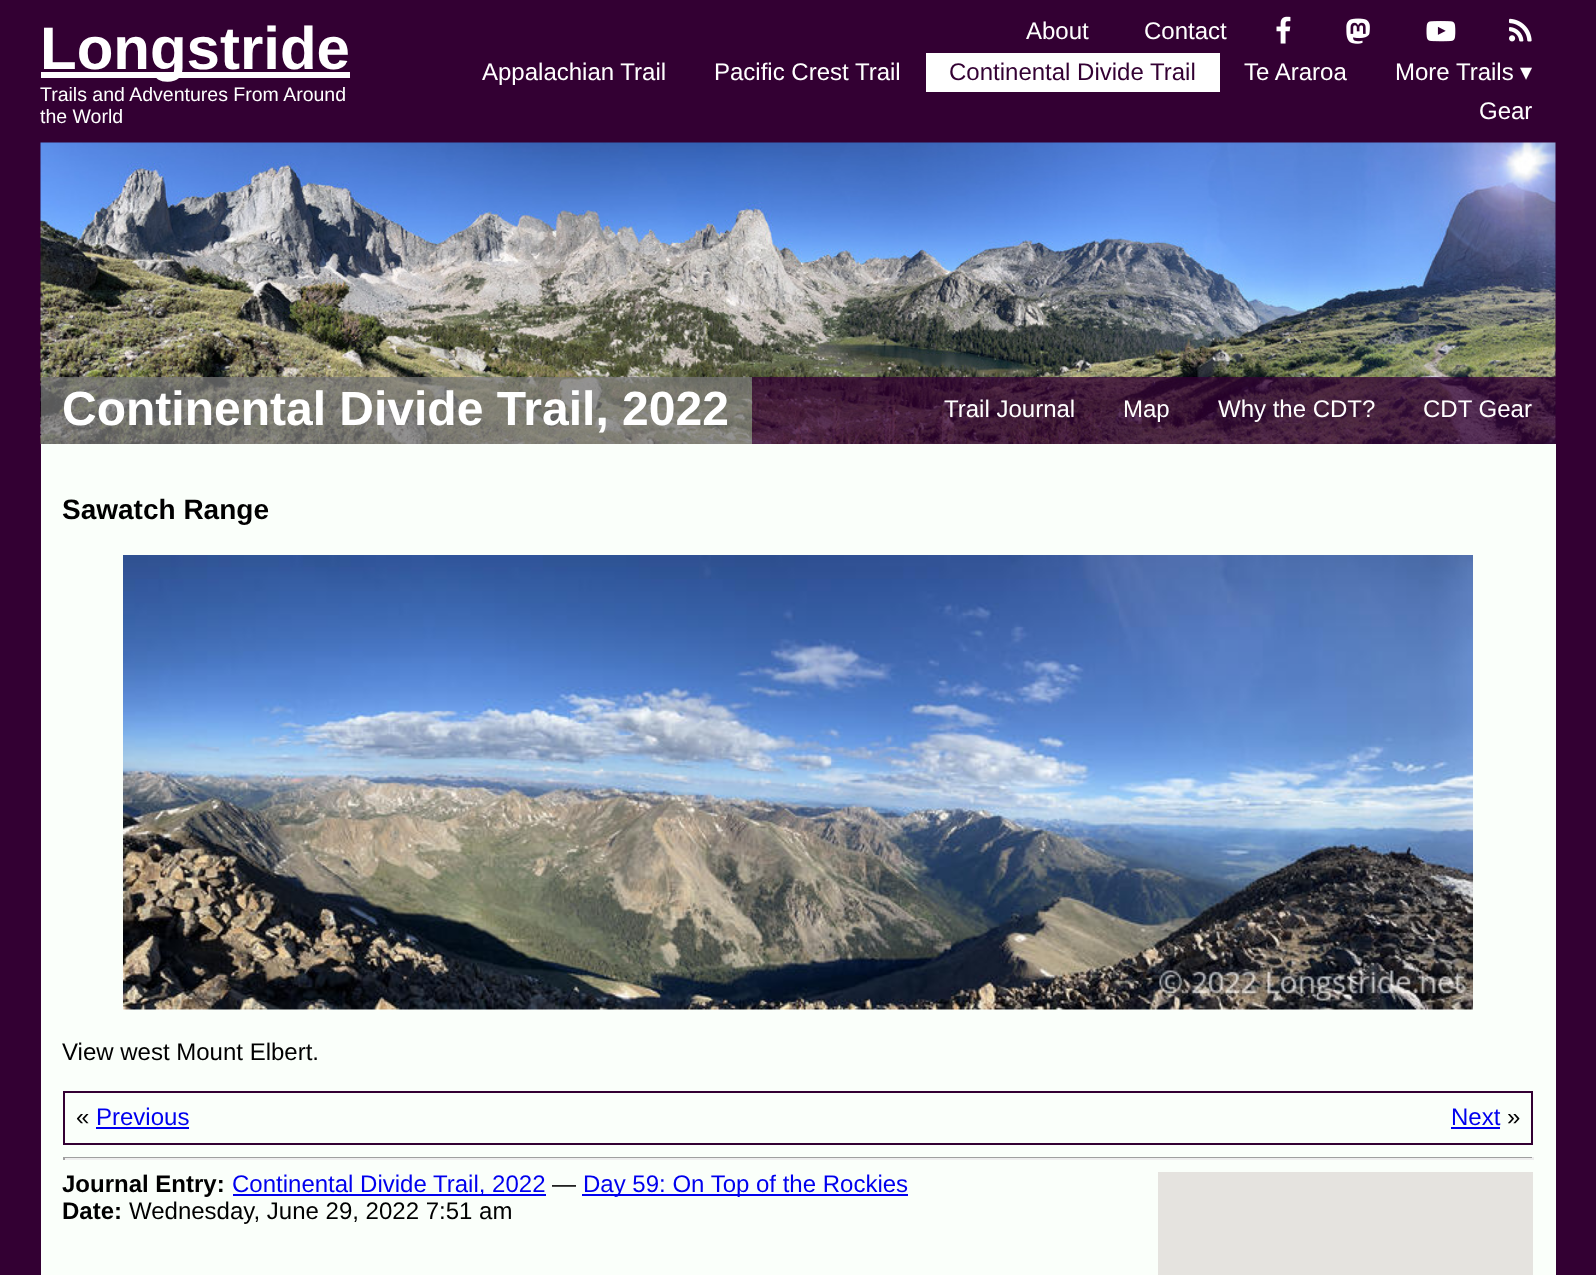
(async () => {
  const canvas = document.querySelector("canvas");
  canvas.width = 1596;
  canvas.height = 1275;
  const ctx = canvas.getContext("2d");
  ctx.miterLimit = 4;
  ctx.fontKerning = "normal";
  async function loadImage(src) {
    const img = new Image();
    img.src = src;
    await img.decode();
    return img;
  }

  ctx.fillStyle = "#330033";
  ctx.fillRect(0, 0, 1596, 1275);
  ctx.fillStyle = "#ffffff";
  ctx.fillRect(41, 72, 309, 6);
  ctx.drawImage(await loadImage("img/1.png"), 1276, 16, 15, 28);
  ctx.drawImage(await loadImage("img/2.png"), 1346, 18, 24, 26);
  ctx.drawImage(await loadImage("img/3.png"), 1426, 21, 30, 21);
  ctx.drawImage(await loadImage("img/4.png"), 1509, 18, 23, 24);
  ctx.fillRect(926, 53, 294, 39);
  ctx.drawImage(await loadImage("img/5.png"), 40, 142, 1516, 302);
  for (const [x, y, w, h, color] of [
    [41, 377, 711, 67, "rgba(119, 119, 119, 0.75)"],
    [752, 377, 804, 67, "rgba(51, 0, 51, 0.75)"],
    [41, 444, 1515, 831, "#fafffa"],
  ]) {
    ctx.fillStyle = color;
    ctx.fillRect(x, y, w, h);
  }
  ctx.drawImage(await loadImage("img/6.png"), 123, 555, 1350, 455);
  ctx.strokeStyle = "#330033";
  ctx.lineWidth = 2;
  ctx.strokeRect(64, 1092, 1468, 52);
  for (const [x, y, w, h, color] of [
    [96, 1127, 93, 2, "#0000ee"],
    [1451, 1127, 49, 2, "#0000ee"],
    [63, 1157, 1470, 1, "#9f9f9f"],
    [1532, 1157, 2, 3, "#eeeeee"],
    [63, 1158, 1470, 2, "#eeeeee"],
    [63, 1157, 2, 3, "#9f9f9f"],
    [233, 1194, 313, 2, "#0000ee"],
    [582, 1194, 326, 2, "#0000ee"],
    [1158, 1172, 375, 103, "#e5e3df"],
  ]) {
    ctx.fillStyle = color;
    ctx.fillRect(x, y, w, h);
  }
  ctx.font = "bold 60px Liberation Sans";
  ctx.fillStyle = "#ffffff";
  ctx.fillText("Longstride", 40, 69);
  ctx.font = "19.5px Liberation Sans";
  ctx.fillText("Trails and Adventures From Around", 40, 101);
  ctx.fillText("the World", 40, 123);
  ctx.font = "24px Liberation Sans";
  for (const [text, x, y] of [
    ["About", 1026, 39],
    ["Contact", 1144, 39],
    ["Appalachian Trail", 482, 80],
    ["Pacific Crest Trail", 714, 80],
  ]) {
    ctx.fillText(text, x, y);
  }
  ctx.fillStyle = "#330033";
  ctx.fillText("Continental Divide Trail", 949, 80);
  ctx.fillStyle = "#ffffff";
  ctx.fillText("Te Araroa", 1244, 80);
  ctx.fillText("More Trails", 1395, 80);
  ctx.font = "24px DejaVu Sans";
  ctx.fillText("▾", 1520, 80);
  ctx.font = "24px Liberation Sans";
  ctx.fillText("Gear", 1479, 119);
  ctx.font = "bold 48px Liberation Sans";
  ctx.fillText("Continental Divide Trail, 2022", 62, 425);
  ctx.font = "24px Liberation Sans";
  for (const [text, x, y] of [
    ["Trail Journal", 944, 417],
    ["Map", 1123, 417],
    ["Why the CDT?", 1218, 417],
    ["CDT Gear", 1423, 417],
  ]) {
    ctx.fillText(text, x, y);
  }
  ctx.font = "bold 28px Liberation Sans";
  ctx.fillStyle = "#000000";
  ctx.fillText("Sawatch Range", 62, 519);
  ctx.font = "24px Liberation Sans";
  ctx.fillText("View west Mount Elbert.", 62, 1060);
  ctx.fillText("«", 76, 1125);
  ctx.fillStyle = "#0000ee";
  ctx.fillText("Previous", 96, 1125);
  ctx.fillText("Next", 1451, 1125);
  ctx.fillStyle = "#000000";
  ctx.fillText("»", 1507, 1125);
  ctx.font = "bold 24px Liberation Sans";
  ctx.fillText("Journal Entry:", 62, 1192);
  ctx.font = "24px Liberation Sans";
  ctx.fillStyle = "#0000ee";
  ctx.fillText("Continental Divide Trail, 2022", 232, 1192);
  ctx.fillStyle = "#000000";
  ctx.fillText("—", 552, 1192);
  ctx.fillStyle = "#0000ee";
  ctx.fillText("Day 59: On Top of the Rockies", 583, 1192);
  ctx.font = "bold 24px Liberation Sans";
  ctx.fillStyle = "#000000";
  ctx.fillText("Date:", 62, 1219);
  ctx.font = "24px Liberation Sans";
  ctx.fillText("Wednesday, June 29, 2022 7:51 am", 129, 1219);
})();
